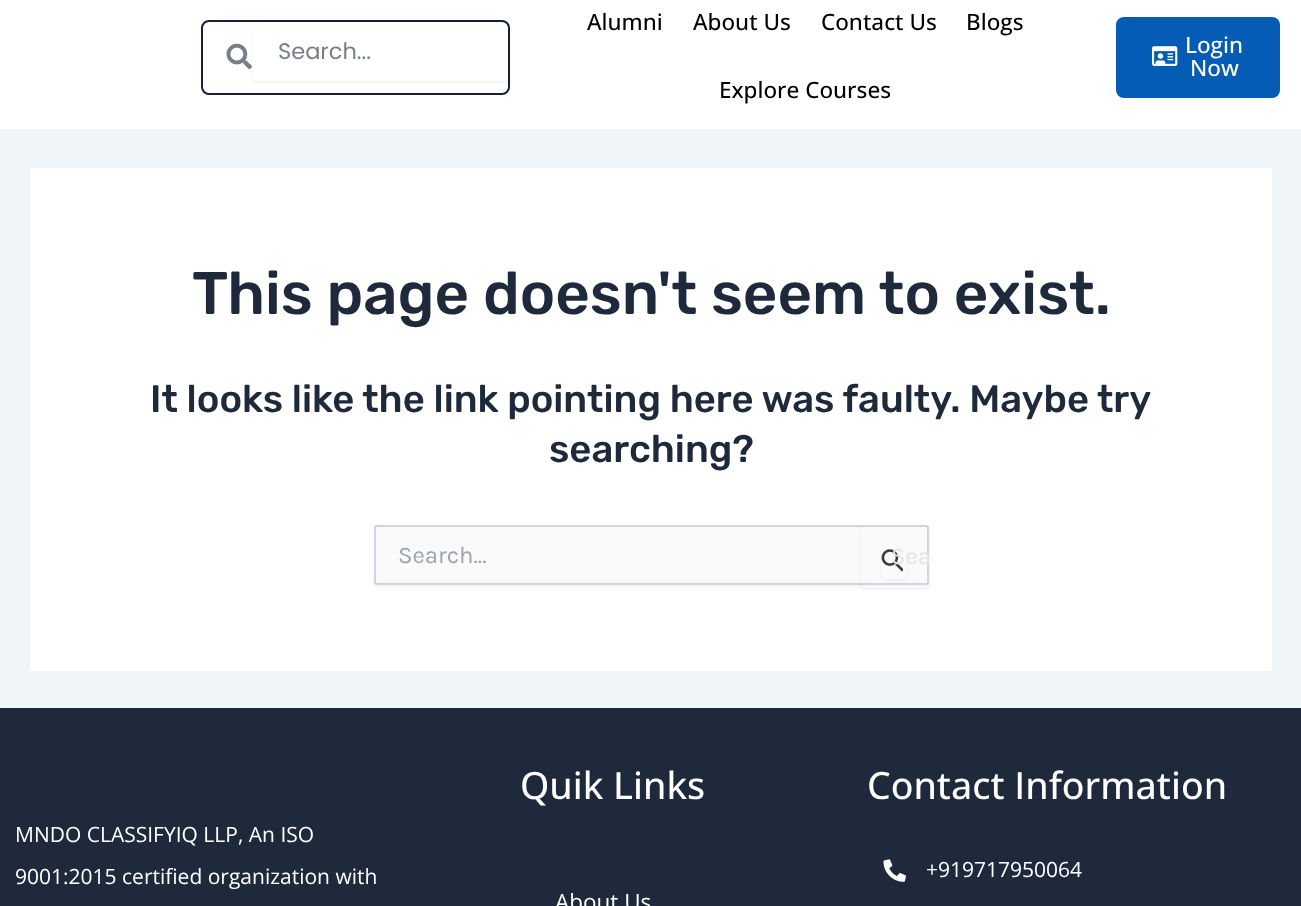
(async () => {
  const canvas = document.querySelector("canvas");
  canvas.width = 1301;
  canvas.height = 906;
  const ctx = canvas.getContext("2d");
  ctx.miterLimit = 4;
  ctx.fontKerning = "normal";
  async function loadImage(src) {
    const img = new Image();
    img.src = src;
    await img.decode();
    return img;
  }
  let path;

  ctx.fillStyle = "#f0f5fa";
  ctx.fillRect(0, 0, 1301, 906);
  ctx.fillStyle = "#ffffff";
  ctx.fillRect(0, 0, 1301, 129);
  ctx.beginPath();
  ctx.roundRect(202, 21, 307, 73, 7);
  ctx.strokeStyle = "#152039";
  ctx.lineWidth = 2;
  ctx.stroke();
  ctx.save();
  path = new Path2D("M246 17H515V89H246ZM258 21H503C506.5 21 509 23.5 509 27V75C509 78.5 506.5 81 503 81H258C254.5 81 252 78.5 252 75V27C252 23.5 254.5 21 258 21Z");
  ctx.clip(path, "evenodd");
  ctx.fillStyle = "rgba(0, 0, 0, 0.05)";
  ctx.filter = "blur(1.5px)";
  ctx.beginPath();
  ctx.roundRect(252, 23, 257, 60, 6);
  ctx.fill();
  ctx.filter = "none";
  ctx.restore();
  ctx.drawImage(await loadImage("img/1.png"), 226, 43, 26, 27);
  ctx.fillStyle = "#045cb4";
  ctx.beginPath();
  ctx.roundRect(1116, 17, 164, 81, 8);
  ctx.fill();
  ctx.drawImage(await loadImage("img/2.png"), 1152, 46, 26, 20);
  ctx.fillStyle = "#ffffff";
  ctx.fillRect(30, 168, 1242, 503);
  ctx.fillStyle = "rgba(0, 0, 0, 0.05)";
  ctx.filter = "blur(1.5px)";
  ctx.beginPath();
  ctx.roundRect(374, 527, 555, 60, 3);
  ctx.fill();
  ctx.filter = "none";
  ctx.fillStyle = "#fafafa";
  ctx.beginPath();
  ctx.roundRect(375, 526, 553, 58, 2);
  ctx.fill();
  ctx.strokeStyle = "#d1d5db";
  ctx.stroke();
  ctx.save();
  path = new Path2D("M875 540H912V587H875ZM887 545H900C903.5 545 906 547.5 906 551V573C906 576.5 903.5 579 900 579H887C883.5 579 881 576.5 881 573V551C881 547.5 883.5 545 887 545Z");
  ctx.clip(path, "evenodd");
  ctx.fillStyle = "rgba(0, 0, 0, 0.05)";
  ctx.filter = "blur(1.5px)";
  ctx.beginPath();
  ctx.roundRect(881, 546, 25, 35, 6);
  ctx.fill();
  ctx.filter = "none";
  ctx.restore();
  ctx.drawImage(await loadImage("img/3.png"), 881, 549, 22, 23);
  ctx.save();
  path = new Path2D("M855 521H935V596H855ZM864 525H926C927.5 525 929 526.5 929 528V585C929 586.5 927.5 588 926 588H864C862.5 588 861 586.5 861 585V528C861 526.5 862.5 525 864 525Z");
  ctx.clip(path, "evenodd");
  ctx.fillStyle = "rgba(0, 0, 0, 0.05)";
  ctx.filter = "blur(1.5px)";
  ctx.beginPath();
  ctx.roundRect(861, 527, 68, 63, 3);
  ctx.fill();
  ctx.filter = "none";
  ctx.restore();
  ctx.fillStyle = "#1e293b";
  ctx.fillRect(0, 708, 1301, 198);
  ctx.drawImage(await loadImage("img/4.png"), 883, 859, 23, 23);
  ctx.font = "22.5px Poppins";
  ctx.fillStyle = "#787f89";
  ctx.fillText("Search...", 278, 59);
  ctx.font = "500 22.5px Open Sans";
  ctx.fillStyle = "#000000";
  for (const [text, x, y] of [
    ["Alumni", 587, 30],
    ["About Us", 693, 30],
    ["Contact Us", 821, 30],
    ["Blogs", 966, 30],
    ["Explore Courses", 719, 98],
  ]) {
    ctx.fillText(text, x, y);
  }
  ctx.fillStyle = "#ffffff";
  ctx.fillText("Login", 1185, 53);
  ctx.fillText("Now", 1190, 76);
  ctx.font = "500 60px Rubik";
  ctx.fillStyle = "#1e293b";
  ctx.fillText("This page doesn't seem to exist.", 192, 314);
  ctx.font = "500 38.25px Rubik";
  ctx.fillText("It looks like the link pointing here was faulty. Maybe try", 150, 412);
  ctx.fillText("searching?", 549, 462);
  ctx.font = "24px Karla";
  ctx.fillStyle = "#9ca3af";
  ctx.fillText("Search...", 398, 563);
  ctx.fillStyle = "#e4e4e5";
  ctx.fillText("Sea", 891, 564);
  ctx.font = "21px Open Sans";
  ctx.fillStyle = "#ffffff";
  ctx.fillText("MNDO CLASSIFYIQ LLP, An ISO", 15, 842);
  ctx.fillText("9001:2015 certified organization with", 15, 884);
  ctx.font = "500 37.5px Open Sans";
  ctx.fillText("Quik Links", 520, 799);
  ctx.font = "22.5px Open Sans";
  ctx.fillText("About Us", 555, 910);
  ctx.font = "500 37.5px Open Sans";
  ctx.fillText("Contact Information", 867, 799);
  ctx.font = "21px Open Sans";
  ctx.fillText("+919717950064", 926, 877);
})();
